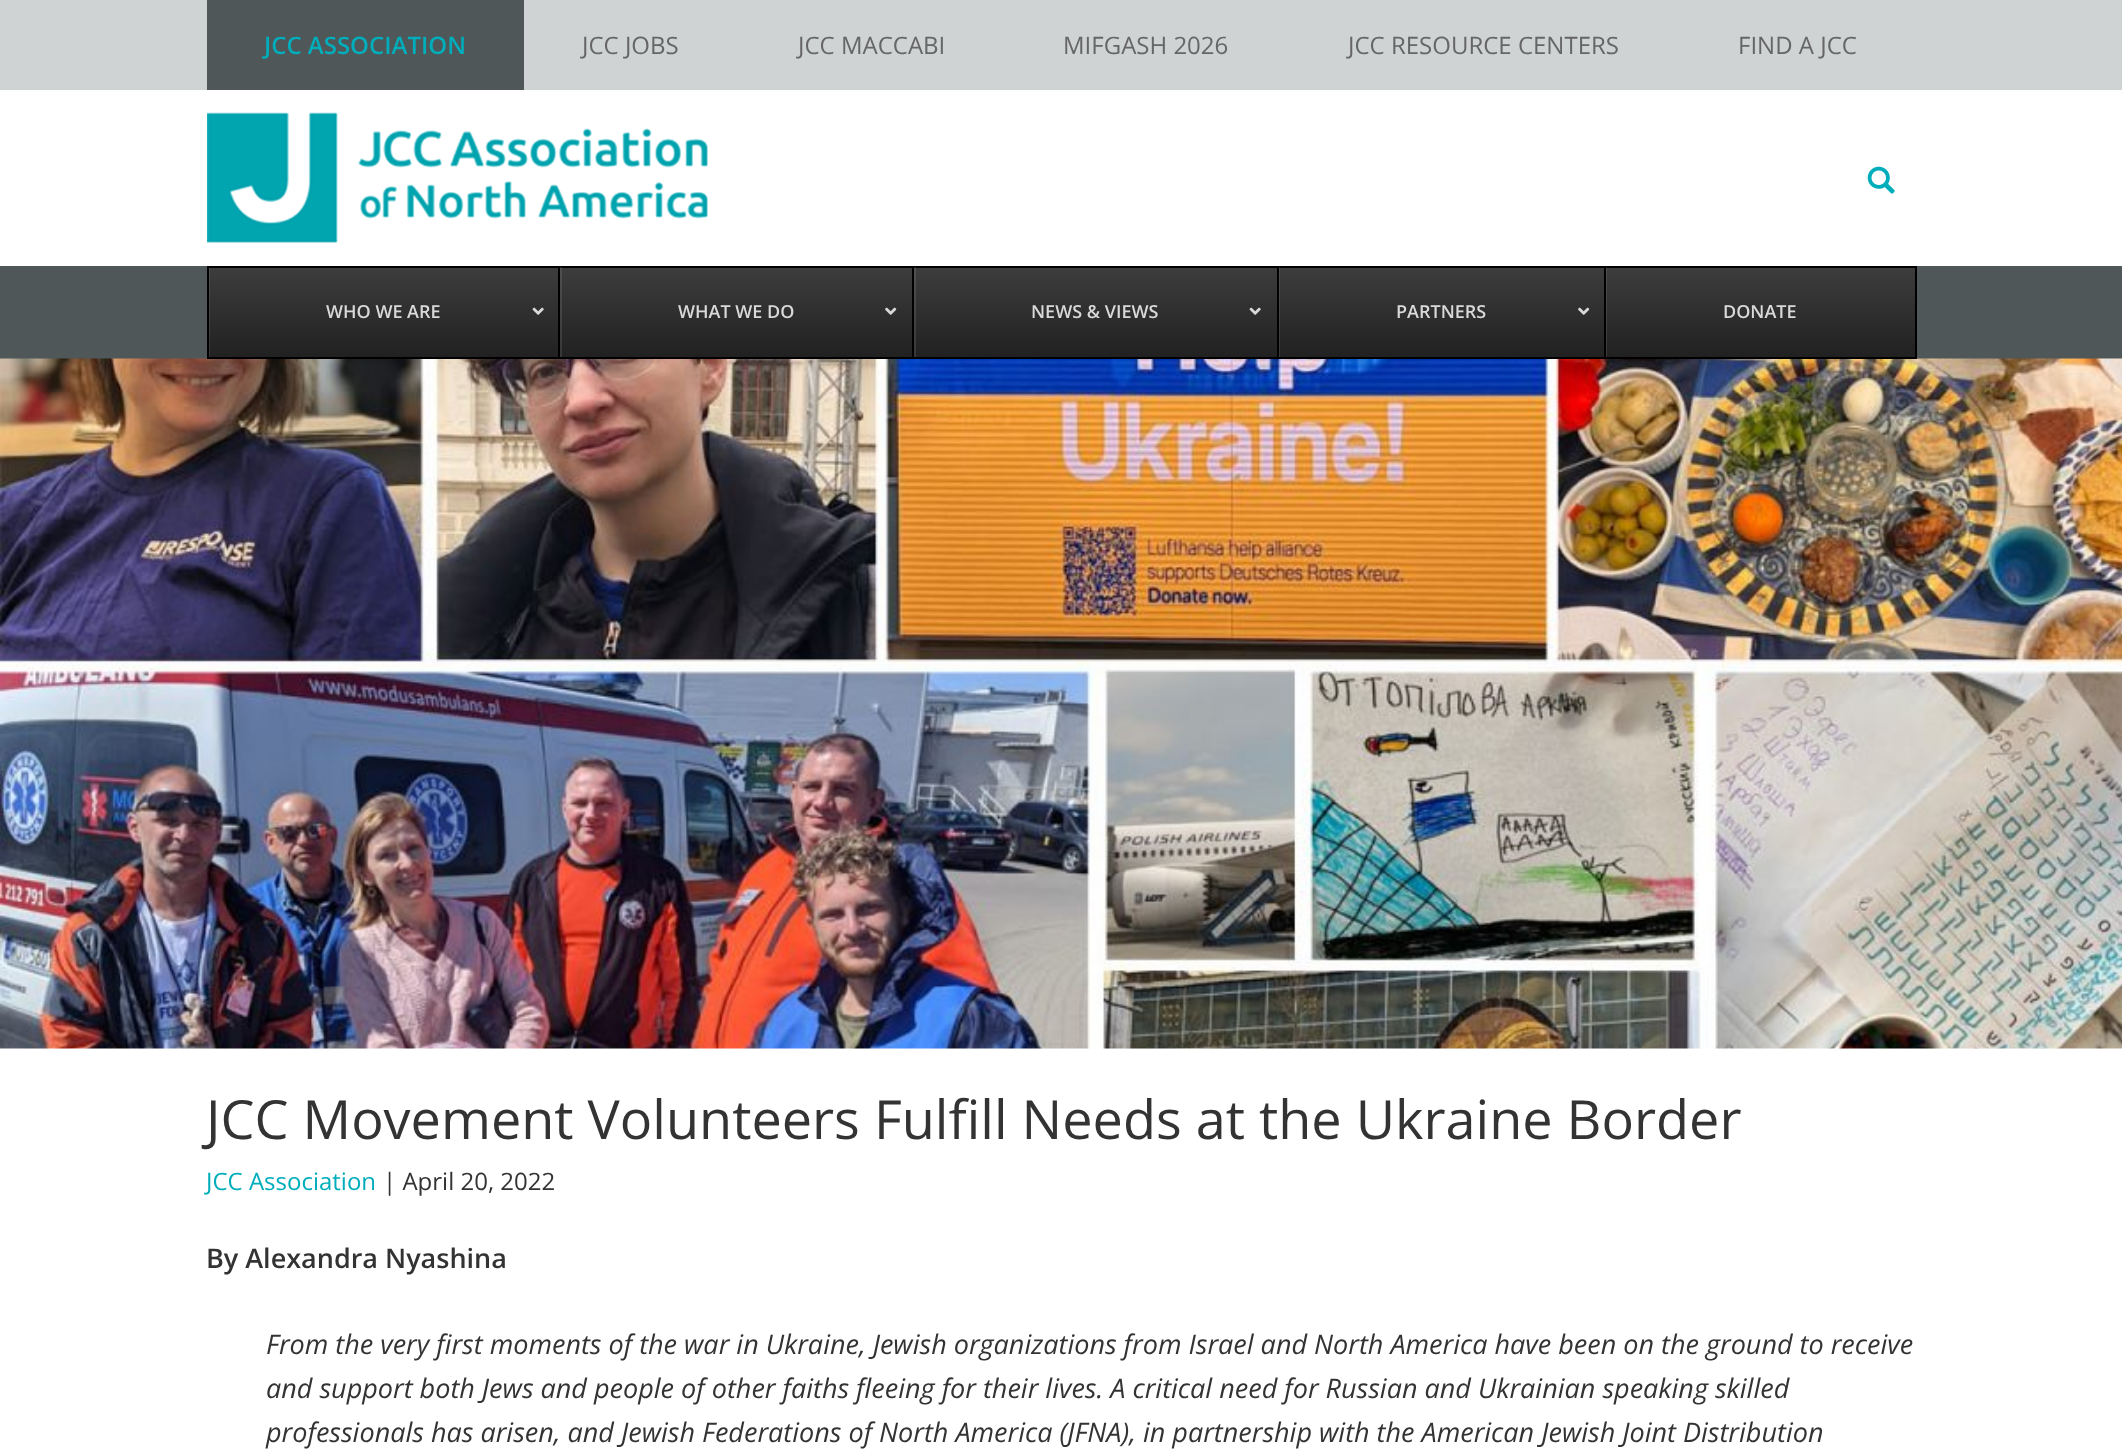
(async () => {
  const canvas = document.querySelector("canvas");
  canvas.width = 2122;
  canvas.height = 1455;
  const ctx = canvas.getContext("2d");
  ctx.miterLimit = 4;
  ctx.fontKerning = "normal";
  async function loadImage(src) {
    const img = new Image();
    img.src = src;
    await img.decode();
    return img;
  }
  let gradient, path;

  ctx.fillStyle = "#ffffff";
  ctx.fillRect(0, 0, 2122, 1455);
  ctx.fillStyle = "#cfd3d4";
  ctx.fillRect(0, 0, 2122, 90);
  ctx.fillStyle = "#4f5759";
  ctx.fillRect(207, 0, 317, 90);
  ctx.drawImage(await loadImage("img/1.png"), 207, 112, 501, 131);
  ctx.drawImage(await loadImage("img/2.png"), 1867, 166, 28, 28);
  ctx.fillRect(0, 266, 2122, 93);
  gradient = ctx.createLinearGradient(1062, 267, 1062, 357);
  gradient.addColorStop(0, "#3d3d3d");
  gradient.addColorStop(1, "#212121");
  ctx.fillStyle = gradient;
  ctx.fillRect(209, 268, 1706, 89);
  ctx.save();
  ctx.beginPath();
  ctx.rect(209, 267, 1707, 90);
  ctx.clip();
  ctx.fillStyle = "rgba(255, 255, 255, 0.1)";
  path = new Path2D("M60 118H2064V506H60ZM210 268H1917V358H210Z");
  ctx.fill(path, "evenodd");
  ctx.restore();
  ctx.drawImage(await loadImage("img/5.png"), 0, 358, 2122, 691);
  ctx.strokeStyle = "#000000";
  ctx.lineWidth = 2;
  ctx.strokeRect(208, 267, 1708, 91);
  ctx.drawImage(await loadImage("img/3.png"), 532, 307, 12, 8);
  ctx.fillStyle = "rgba(255, 255, 255, 0.1)";
  ctx.fillRect(560, 267, 2, 90);
  ctx.fillStyle = "#000000";
  ctx.fillRect(558, 267, 2, 90);
  ctx.drawImage(await loadImage("img/4.png"), 885, 307, 12, 8);
  ctx.fillStyle = "rgba(255, 255, 255, 0.1)";
  ctx.fillRect(914, 267, 2, 90);
  ctx.fillStyle = "#000000";
  ctx.fillRect(912, 267, 2, 90);
  ctx.drawImage(await loadImage("img/3.png"), 1249, 307, 12, 8);
  ctx.fillStyle = "rgba(255, 255, 255, 0.1)";
  ctx.fillRect(1279, 267, 1, 90);
  ctx.fillStyle = "#000000";
  ctx.fillRect(1277, 267, 2, 90);
  ctx.drawImage(await loadImage("img/4.png"), 1578, 307, 12, 8);
  ctx.fillStyle = "rgba(255, 255, 255, 0.1)";
  ctx.fillRect(1606, 267, 1, 90);
  ctx.fillStyle = "#000000";
  ctx.fillRect(1604, 267, 2, 90);
  ctx.font = "600 24px Open Sans";
  ctx.fillStyle = "#00adbb";
  ctx.fillText("JCC ASSOCIATION", 264, 54);
  ctx.font = "24px Open Sans";
  ctx.fillStyle = "#666666";
  for (const [text, x, y] of [
    ["JCC JOBS", 582, 54],
    ["JCC MACCABI", 798, 54],
    ["MIFGASH 2026", 1063, 54],
    ["JCC RESOURCE CENTERS", 1348, 54],
    ["FIND A JCC", 1738, 54],
  ]) {
    ctx.fillText(text, x, y);
  }
  ctx.font = "600 18px Open Sans";
  ctx.fillStyle = "#d9d9d9";
  for (const [text, x, y] of [
    ["WHO WE ARE", 326, 318],
    ["WHAT WE DO", 678, 318],
    ["NEWS & VIEWS", 1031, 318],
    ["PARTNERS", 1396, 318],
    ["DONATE", 1723, 318],
  ]) {
    ctx.fillText(text, x, y);
  }
  ctx.font = "54px Open Sans";
  ctx.fillStyle = "#333333";
  ctx.fillText("JCC Movement Volunteers Fulfill Needs at the Ukraine Border", 206, 1139);
  ctx.font = "24px Open Sans";
  ctx.fillStyle = "#00adbb";
  ctx.fillText("JCC Association", 206, 1190);
  ctx.fillStyle = "#333333";
  ctx.fillText("| April 20, 2022", 383, 1190);
  ctx.font = "600 27px Open Sans";
  ctx.fillText("By Alexandra Nyashina", 206, 1268);
  ctx.font = "italic 27px Open Sans";
  for (const [text, x, y] of [
    ["From the very first moments of the war in Ukraine, Jewish organizations from Israel and North America have been on the ground to receive", 266, 1354],
    ["and support both Jews and people of other faiths fleeing for their lives. A critical need for Russian and Ukrainian speaking skilled", 266, 1398],
    ["professionals has arisen, and Jewish Federations of North America (JFNA), in partnership with the American Jewish Joint Distribution", 266, 1442],
  ]) {
    ctx.fillText(text, x, y);
  }
})();
